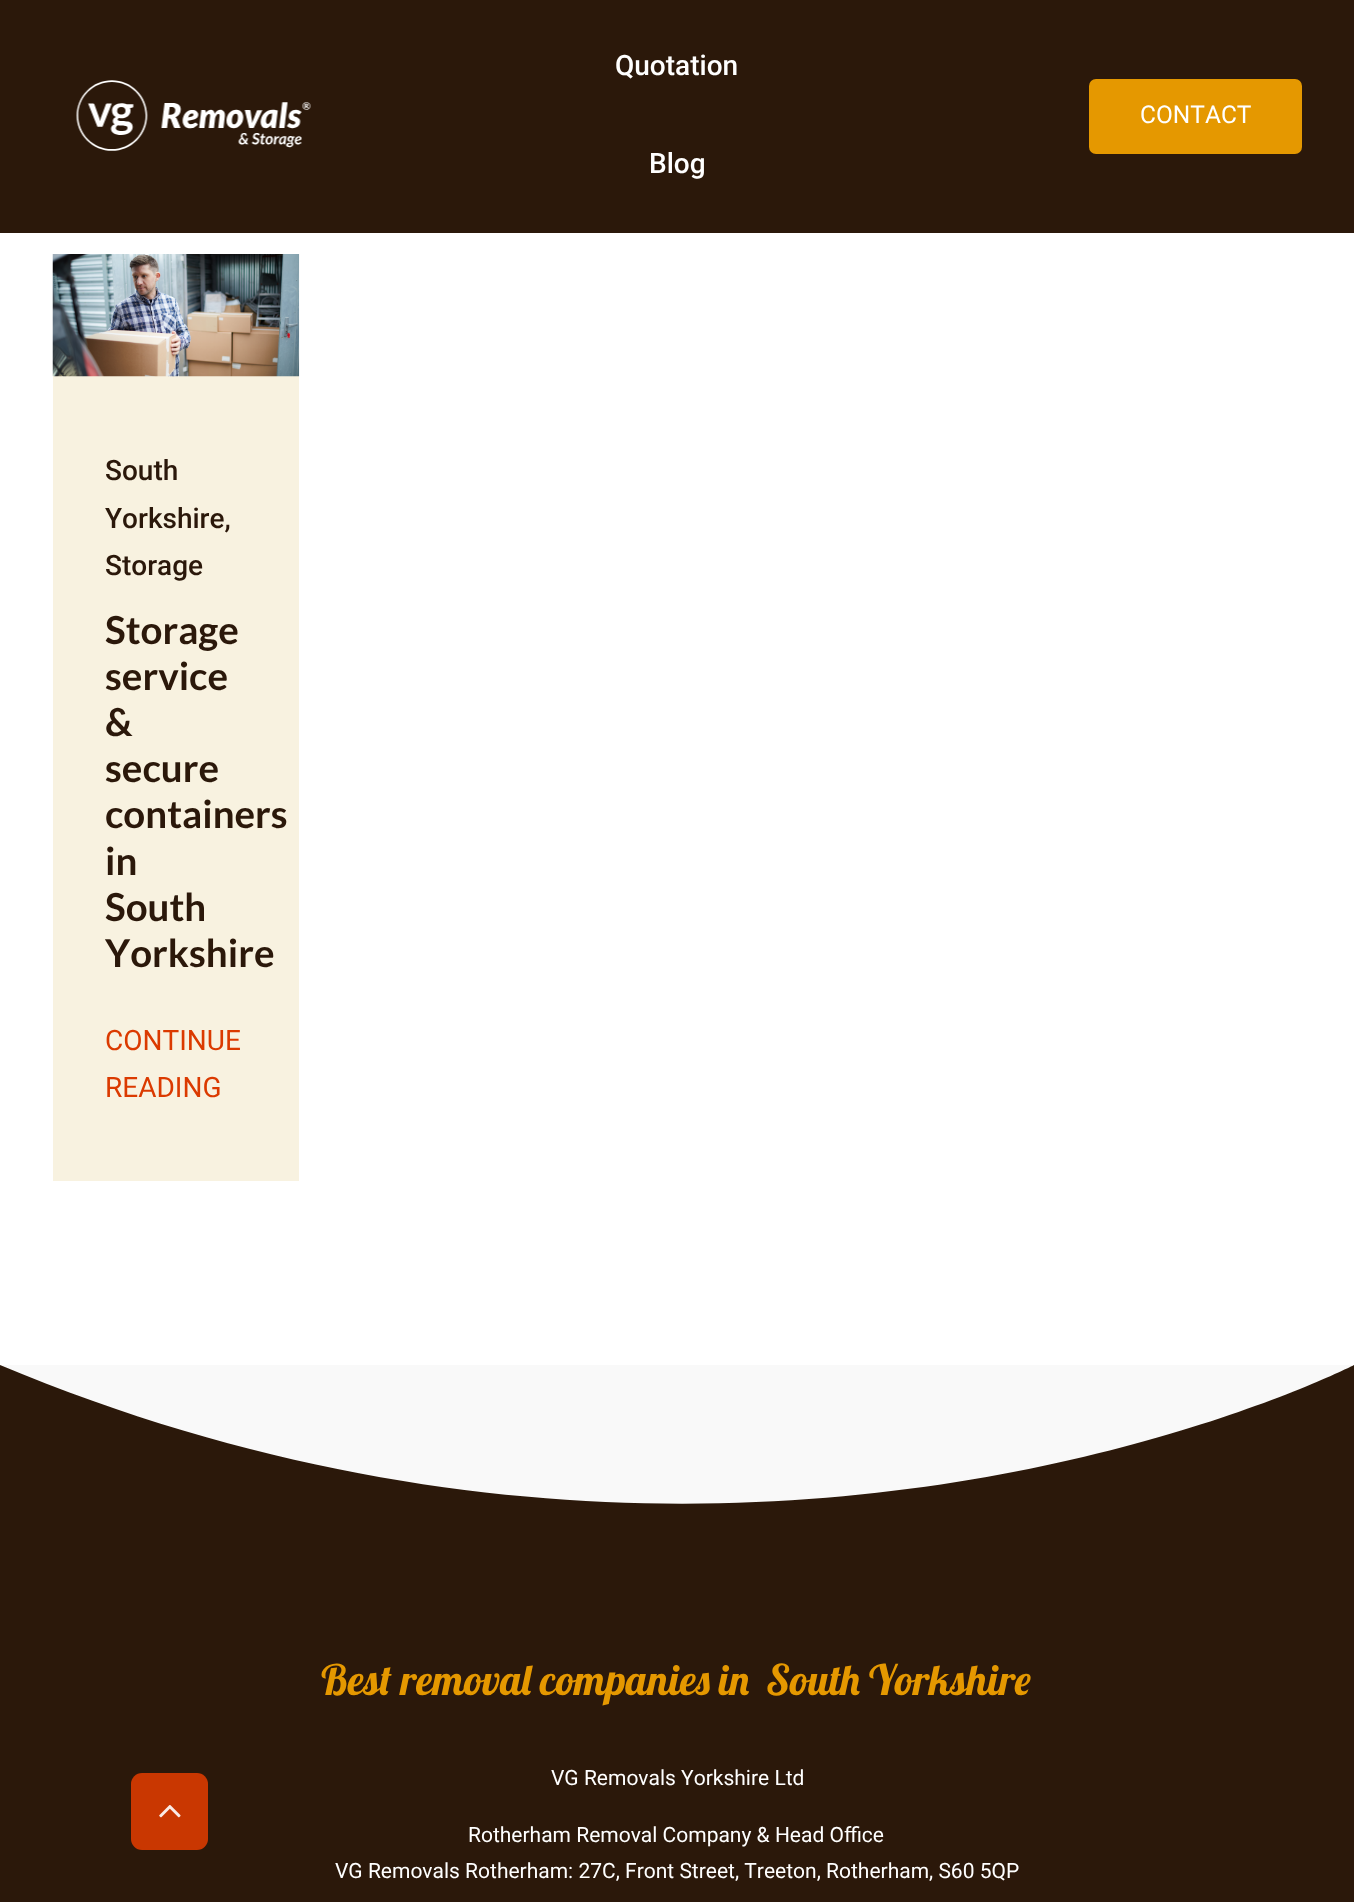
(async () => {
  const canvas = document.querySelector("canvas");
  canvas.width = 1354;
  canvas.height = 1902;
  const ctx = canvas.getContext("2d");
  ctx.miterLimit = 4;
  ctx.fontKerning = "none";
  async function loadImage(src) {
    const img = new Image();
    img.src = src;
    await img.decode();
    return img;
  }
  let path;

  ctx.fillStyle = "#ffffff";
  ctx.fillRect(0, 0, 1354, 1902);
  ctx.fillStyle = "#2b180a";
  ctx.fillRect(0, 0, 1354, 233);
  ctx.drawImage(await loadImage("img/1.png"), 76, 80, 235, 71);
  ctx.fillStyle = "#e59800";
  ctx.beginPath();
  ctx.roundRect(1089, 79, 213, 75, 7);
  ctx.fill();
  ctx.fillStyle = "#f8f2e0";
  ctx.fillRect(53, 376, 246, 805);
  ctx.drawImage(await loadImage("img/2.png"), 52, 254, 248, 123);
  ctx.fillStyle = "#2b180a";
  ctx.fillRect(0, 1365, 1354, 537);
  ctx.fillStyle = "#f9f9f9";
  path = new Path2D("M0 1365C745 1677 1354 1365 1354 1365Z");
  ctx.fill(path);
  ctx.fillStyle = "#c93701";
  ctx.beginPath();
  ctx.roundRect(131, 1773, 77, 77, 11);
  ctx.fill();
  ctx.drawImage(await loadImage("img/3.png"), 159, 1805, 22, 13);
  ctx.font = "500 28px Roboto";
  ctx.fillStyle = "#ffffff";
  ctx.fillText("Quotation", 615, 75);
  ctx.fillText("Blog", 649, 173);
  ctx.font = "24.5px Roboto";
  ctx.fillText("CONTACT", 1140, 123);
  ctx.font = "500 28px Roboto";
  ctx.fillStyle = "#2b180a";
  for (const [text, x, y] of [
    ["South", 105, 480],
    ["Yorkshire,", 105, 528],
    ["Storage", 105, 575],
  ]) {
    ctx.fillText(text, x, y);
  }
  ctx.font = "bold 38.5px Lato";
  for (const [text, x, y] of [
    ["Storage", 105, 644],
    ["service", 105, 690],
    ["&", 105, 736],
    ["secure", 105, 782],
    ["containers", 105, 828],
    ["in", 105, 875],
    ["South", 105, 921],
    ["Yorkshire", 105, 967],
  ]) {
    ctx.fillText(text, x, y);
  }
  ctx.font = "28px Roboto";
  ctx.fillStyle = "#db3a00";
  ctx.fillText("CONTINUE", 105, 1050);
  ctx.fillText("READING", 105, 1097);
  ctx.font = "42px Lobster";
  ctx.fillStyle = "#e59800";
  ctx.fillText("Best removal companies in", 321, 1695);
  ctx.fillText("South Yorkshire", 766, 1695);
  ctx.font = "21px Roboto";
  ctx.fillStyle = "#ffffff";
  for (const [text, x, y] of [
    ["VG Removals Yorkshire Ltd", 551, 1785],
    ["Rotherham Removal Company & Head Office", 468, 1842],
    ["VG Removals Rotherham: 27C, Front Street, Treeton, Rotherham, S60 5QP", 335, 1878],
  ]) {
    ctx.fillText(text, x, y);
  }
})();
